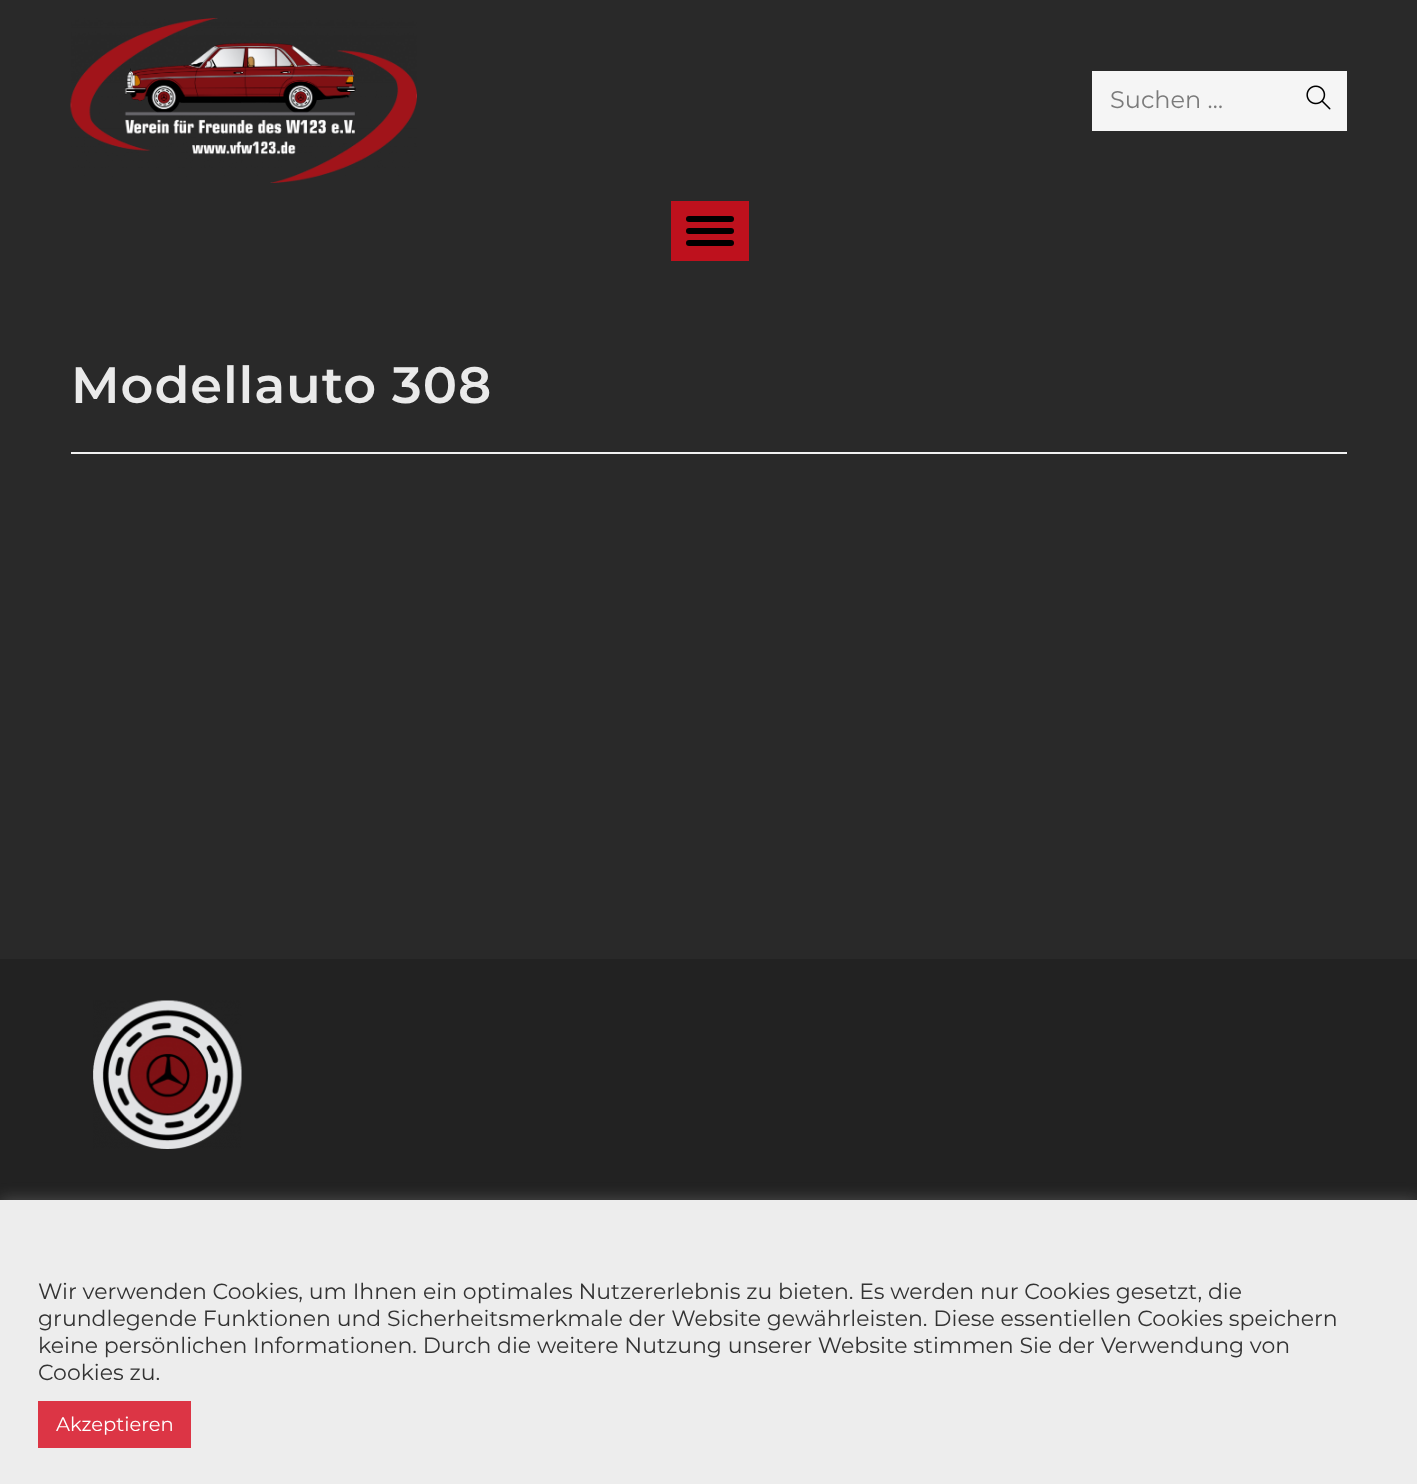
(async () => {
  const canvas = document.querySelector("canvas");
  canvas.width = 1417;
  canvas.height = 1484;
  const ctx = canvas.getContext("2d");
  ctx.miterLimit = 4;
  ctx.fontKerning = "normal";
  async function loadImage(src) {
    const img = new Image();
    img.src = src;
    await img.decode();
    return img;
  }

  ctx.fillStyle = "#292929";
  ctx.fillRect(0, 0, 1417, 1484);
  ctx.drawImage(await loadImage("img/1.png"), 70, 18, 347, 165);
  ctx.fillStyle = "#f5f5f5";
  ctx.fillRect(1092, 71, 255, 60);
  ctx.drawImage(await loadImage("img/2.png"), 1306, 85, 25, 25);
  ctx.fillStyle = "#be111d";
  ctx.fillRect(671, 201, 78, 60);
  ctx.fillStyle = "#000000";
  ctx.beginPath();
  ctx.roundRect(686, 216, 48, 6, 3);
  ctx.fill();
  ctx.beginPath();
  ctx.roundRect(686, 228, 48, 6, 3);
  ctx.fill();
  ctx.beginPath();
  ctx.roundRect(686, 240, 48, 6, 3);
  ctx.fill();
  ctx.fillStyle = "#f1f1f1";
  ctx.fillRect(71, 452, 1276, 2);
  ctx.fillStyle = "#222222";
  ctx.fillRect(0, 959, 1417, 241);
  ctx.drawImage(await loadImage("img/3.png"), 93, 1000, 149, 149);
  ctx.fillStyle = "rgba(172, 171, 171, 0.3)";
  ctx.filter = "blur(7.5px)";
  ctx.beginPath();
  ctx.rect(0, 1199, 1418, 285);
  ctx.fill();
  ctx.filter = "none";
  ctx.fillStyle = "#ededed";
  ctx.fillRect(0, 1200, 1417, 284);
  ctx.fillStyle = "#dc3545";
  ctx.fillRect(38, 1401, 153, 47);
  ctx.font = "24px Montserrat";
  ctx.fillStyle = "#7b7b7b";
  ctx.fillText("Suchen …", 1110, 108);
  ctx.letterSpacing = "0.9px";
  ctx.font = "600 51px Montserrat";
  ctx.fillStyle = "#eaeaea";
  ctx.fillText("Modellauto 308", 71, 403);
  ctx.letterSpacing = "0px";
  ctx.font = "22px Montserrat";
  ctx.fillStyle = "#333333";
  for (const [text, x, y] of [
    ["Wir verwenden Cookies, um Ihnen ein optimales Nutzererlebnis zu bieten. Es werden nur Cookies gesetzt, die", 38, 1299],
    ["grundlegende Funktionen und Sicherheitsmerkmale der Website gewährleisten. Diese essentiellen Cookies speichern", 38, 1326],
    ["keine persönlichen Informationen. Durch die weitere Nutzung unserer Website stimmen Sie der Verwendung von", 38, 1353],
    ["Cookies zu.", 38, 1380],
  ]) {
    ctx.fillText(text, x, y);
  }
  ctx.font = "19.5px Montserrat";
  ctx.fillStyle = "#ffffff";
  ctx.fillText("Akzeptieren", 56, 1431);
})();
